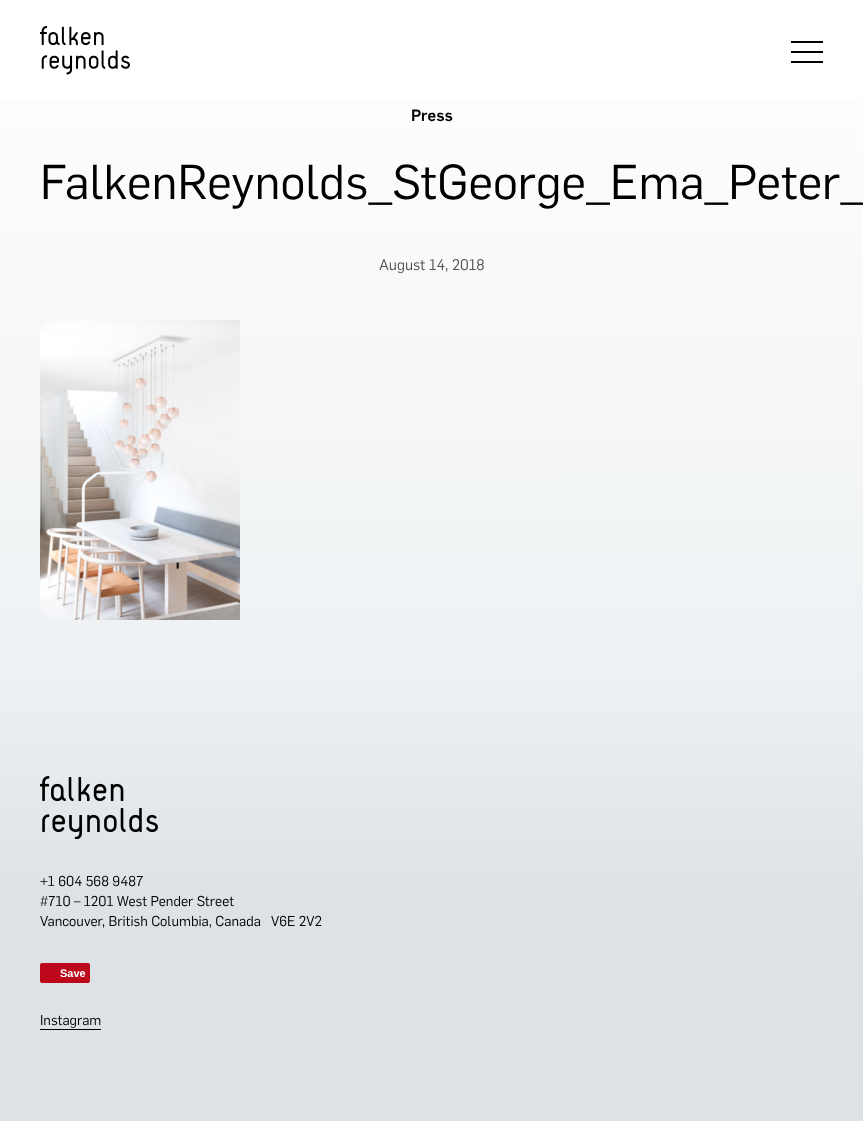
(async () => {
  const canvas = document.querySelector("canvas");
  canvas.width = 863;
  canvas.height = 1121;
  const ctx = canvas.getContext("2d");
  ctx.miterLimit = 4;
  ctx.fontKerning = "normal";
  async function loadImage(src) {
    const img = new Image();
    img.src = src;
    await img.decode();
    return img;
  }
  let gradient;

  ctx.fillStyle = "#ffffff";
  ctx.fillRect(0, 0, 863, 1121);
  ctx.drawImage(await loadImage("img/1.png"), 40, 26, 90, 49);
  for (const [x, y, w, h, color] of [
    [791, 61, 32, 2, "#000000"],
    [791, 51, 32, 2, "#000000"],
    [791, 41, 32, 2, "#000000"],
  ]) {
    ctx.fillStyle = color;
    ctx.fillRect(x, y, w, h);
  }
  gradient = ctx.createLinearGradient(431, 0, 432, 1121);
  gradient.addColorStop(0, "#ffffff");
  gradient.addColorStop(0.6, "#eef1f3");
  gradient.addColorStop(0.8, "#dce2e6");
  ctx.fillStyle = gradient;
  ctx.fillRect(0, 99, 863, 1022);
  ctx.drawImage(await loadImage("img/2.png"), 40, 320, 200, 300);
  ctx.drawImage(await loadImage("img/3.png"), 40, 776, 118, 63);
  ctx.fillStyle = "#bd081c";
  ctx.beginPath();
  ctx.roundRect(40, 963, 50, 20, 2);
  ctx.fill();
  ctx.fillStyle = "#000000";
  ctx.fillRect(40, 1029, 61, 1);
  ctx.font = "500 16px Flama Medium";
  ctx.fillText("Press", 411, 121);
  ctx.font = "48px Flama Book";
  ctx.fillText("FalkenReynolds_StGeorge_Ema_Peter_", 40, 199);
  ctx.font = "15px Flama Book";
  ctx.fillStyle = "#515254";
  ctx.fillText("August 14, 2018", 379, 270);
  ctx.font = "14px Flama Book";
  ctx.fillStyle = "#000000";
  for (const [text, x, y] of [
    ["+1 604 568 9487", 40, 886],
    ["#710 – 1201 West Pender Street", 40, 906],
    ["Vancouver, British Columbia, Canada   V6E 2V2", 40, 926],
  ]) {
    ctx.fillText(text, x, y);
  }
  ctx.font = "bold 11px Liberation Sans";
  ctx.fillStyle = "#ffffff";
  ctx.fillText("Save", 60, 977);
  ctx.font = "14px Flama Book";
  ctx.fillStyle = "#000000";
  ctx.fillText("Instagram", 40, 1025);
})();
